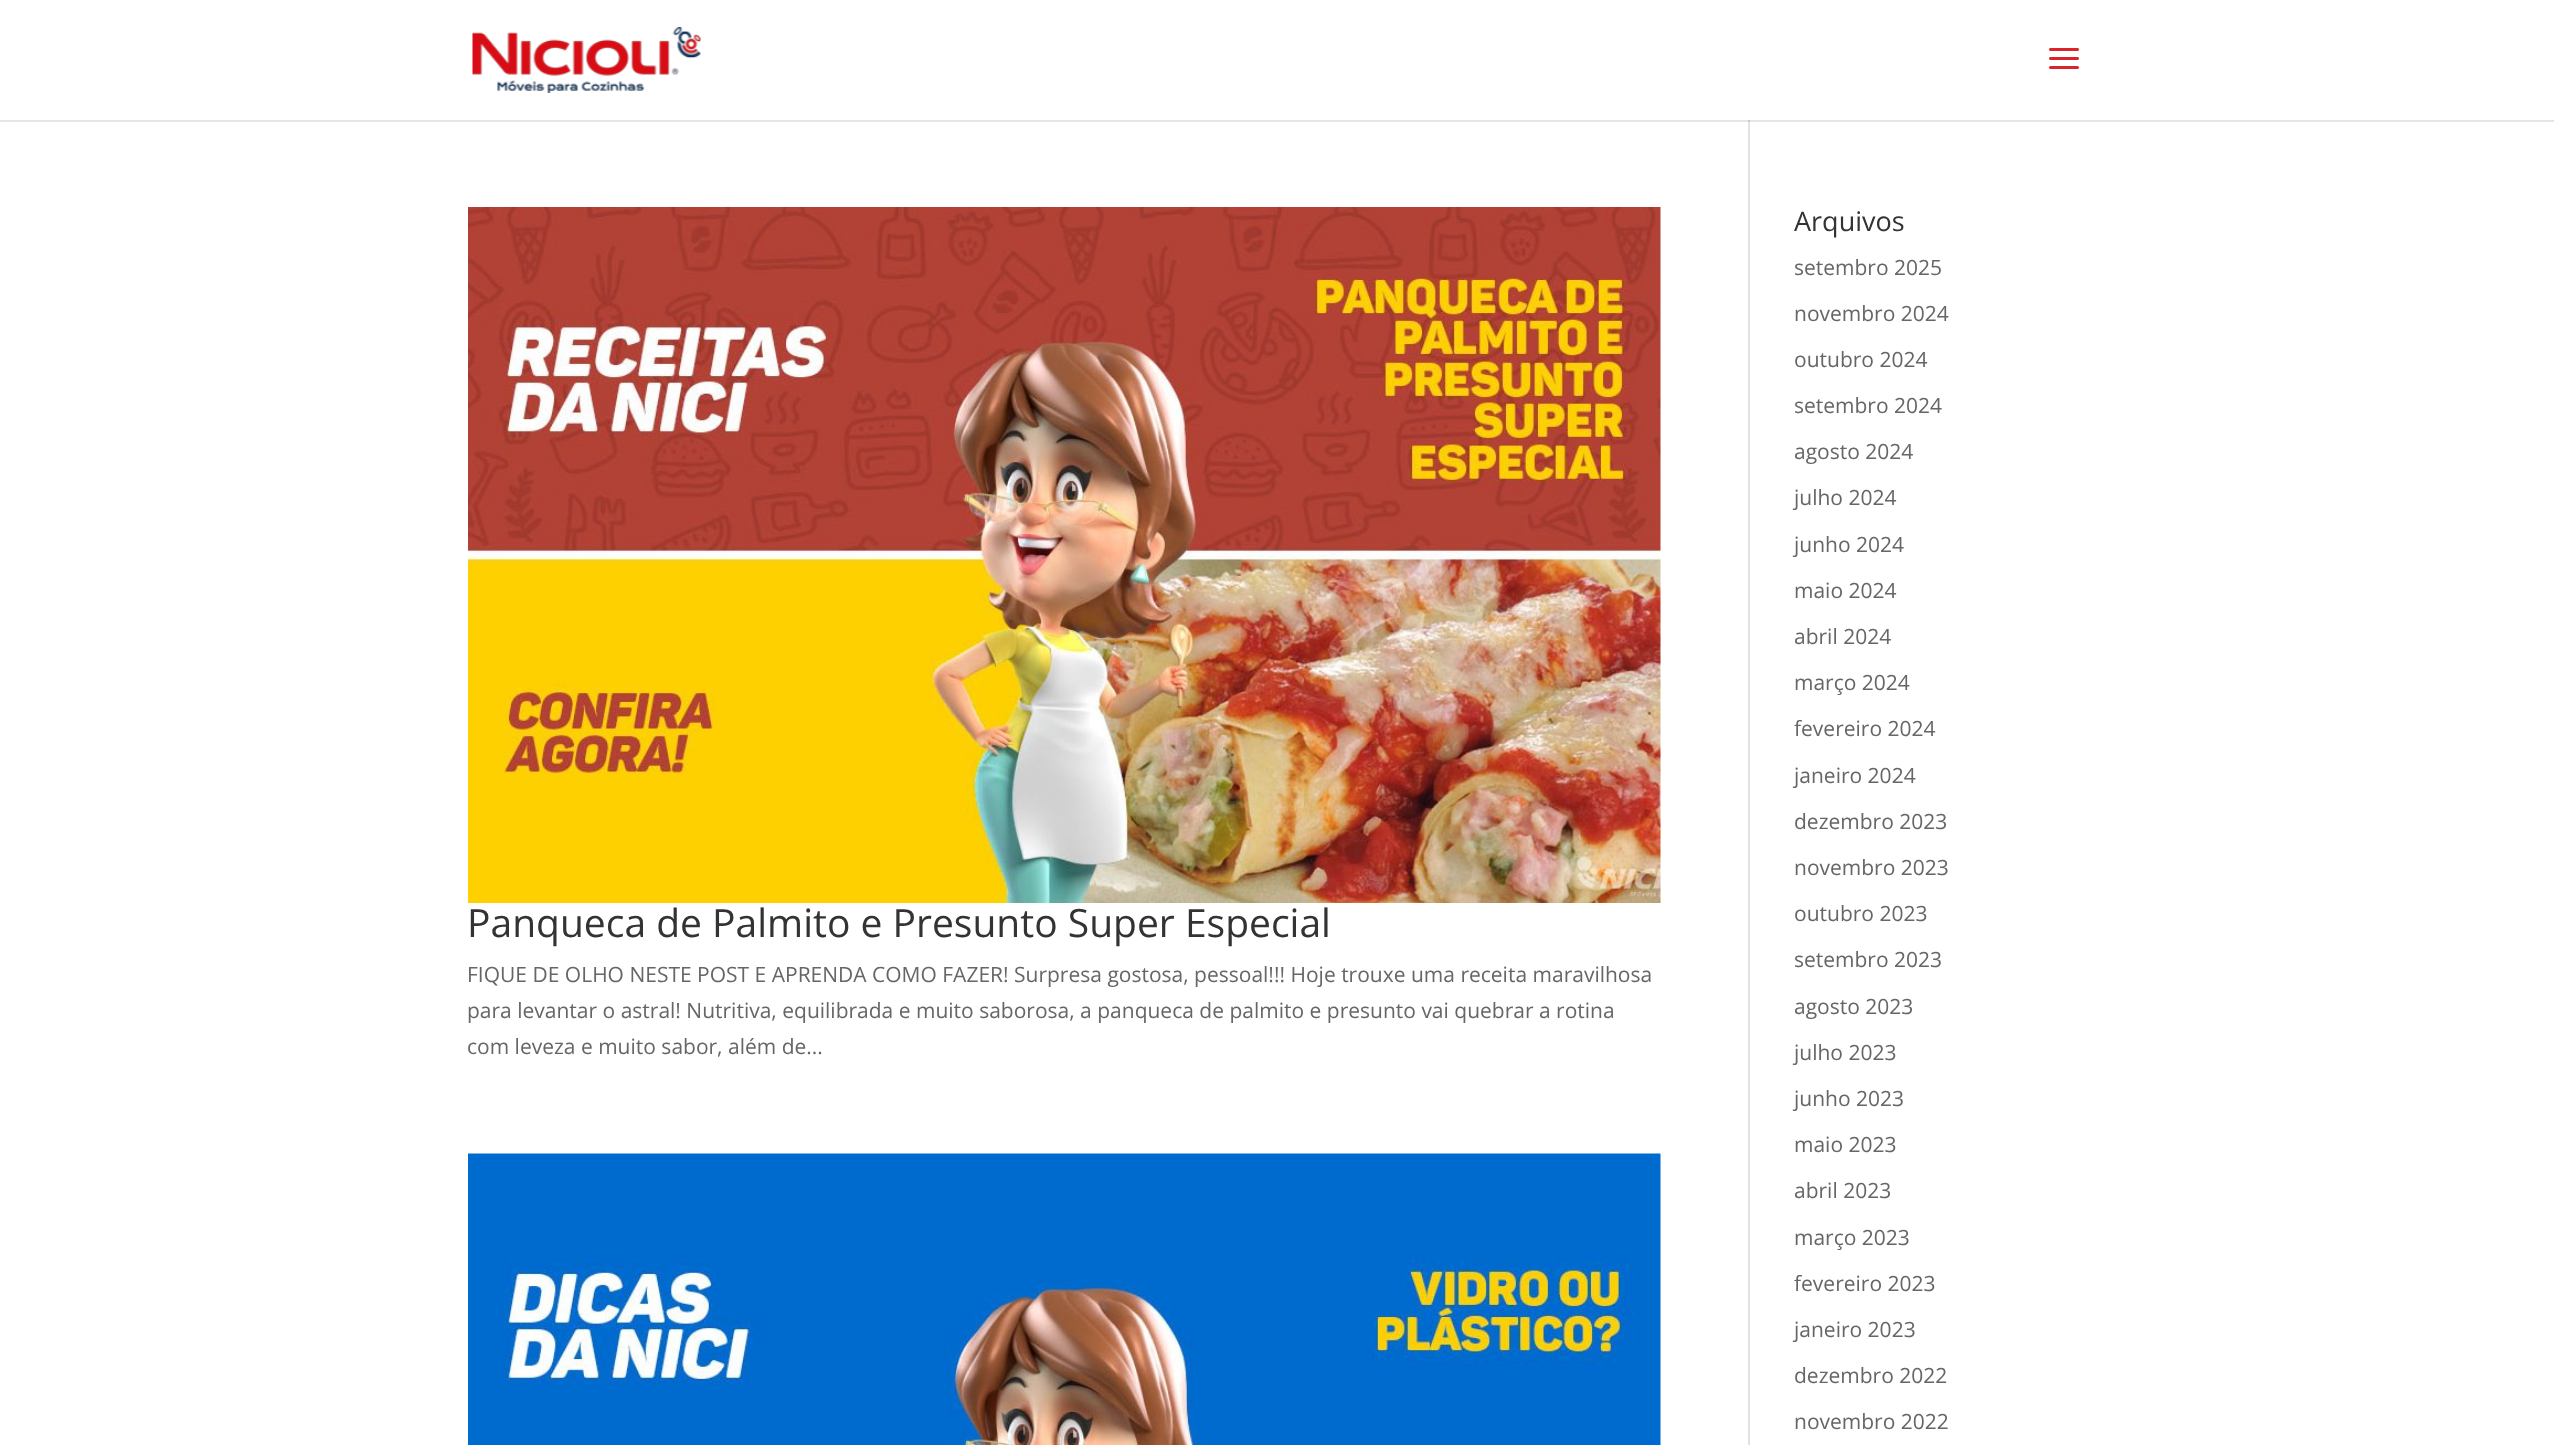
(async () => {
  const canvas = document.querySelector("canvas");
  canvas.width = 2554;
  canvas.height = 1445;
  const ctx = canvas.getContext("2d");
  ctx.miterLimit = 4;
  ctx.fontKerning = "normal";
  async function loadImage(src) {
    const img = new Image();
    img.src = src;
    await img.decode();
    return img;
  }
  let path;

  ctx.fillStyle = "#ffffff";
  ctx.fillRect(0, 0, 2554, 1445);
  ctx.fillStyle = "#e2e2e2";
  ctx.fillRect(1748, 120, 2, 1325);
  ctx.fillStyle = "rgba(0, 0, 0, 0.1)";
  path = new Path2D("M0 120V122H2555V2H2554V120Z");
  ctx.fill(path);
  ctx.drawImage(await loadImage("img/1.png"), 472, 27, 229, 66);
  ctx.drawImage(await loadImage("img/2.png"), 2049, 48, 30, 21);
  ctx.drawImage(await loadImage("img/3.png"), 468, 207, 1193, 696);
  ctx.drawImage(await loadImage("img/4.png"), 468, 1153, 1193, 292);
  ctx.font = "39px Open Sans";
  ctx.fillStyle = "#333333";
  ctx.fillText("Panqueca de Palmito e Presunto Super Especial", 467, 937);
  ctx.font = "21px Open Sans";
  ctx.fillStyle = "#666666";
  for (const [text, x, y] of [
    ["FIQUE DE OLHO NESTE POST E APRENDA COMO FAZER! Surpresa gostosa, pessoal!!! Hoje trouxe uma receita maravilhosa", 467, 982],
    ["para levantar o astral! Nutritiva, equilibrada e muito saborosa, a panqueca de palmito e presunto vai quebrar a rotina", 467, 1018],
    ["com leveza e muito sabor, além de...", 467, 1054],
  ]) {
    ctx.fillText(text, x, y);
  }
  ctx.font = "27px Open Sans";
  ctx.fillStyle = "#333333";
  ctx.fillText("Arquivos", 1794, 231);
  ctx.font = "21px Open Sans";
  ctx.fillStyle = "#666666";
  for (const [text, x, y] of [
    ["setembro 2025", 1794, 275],
    ["novembro 2024", 1794, 321],
    ["outubro 2024", 1794, 367],
    ["setembro 2024", 1794, 413],
    ["agosto 2024", 1794, 459],
    ["julho 2024", 1794, 505],
    ["junho 2024", 1794, 552],
    ["maio 2024", 1794, 598],
    ["abril 2024", 1794, 644],
    ["março 2024", 1794, 690],
    ["fevereiro 2024", 1794, 736],
    ["janeiro 2024", 1794, 783],
    ["dezembro 2023", 1794, 829],
    ["novembro 2023", 1794, 875],
    ["outubro 2023", 1794, 921],
    ["setembro 2023", 1794, 967],
    ["agosto 2023", 1794, 1014],
    ["julho 2023", 1794, 1060],
    ["junho 2023", 1794, 1106],
    ["maio 2023", 1794, 1152],
    ["abril 2023", 1794, 1198],
    ["março 2023", 1794, 1245],
    ["fevereiro 2023", 1794, 1291],
    ["janeiro 2023", 1794, 1337],
    ["dezembro 2022", 1794, 1383],
    ["novembro 2022", 1794, 1429],
  ]) {
    ctx.fillText(text, x, y);
  }
})();
